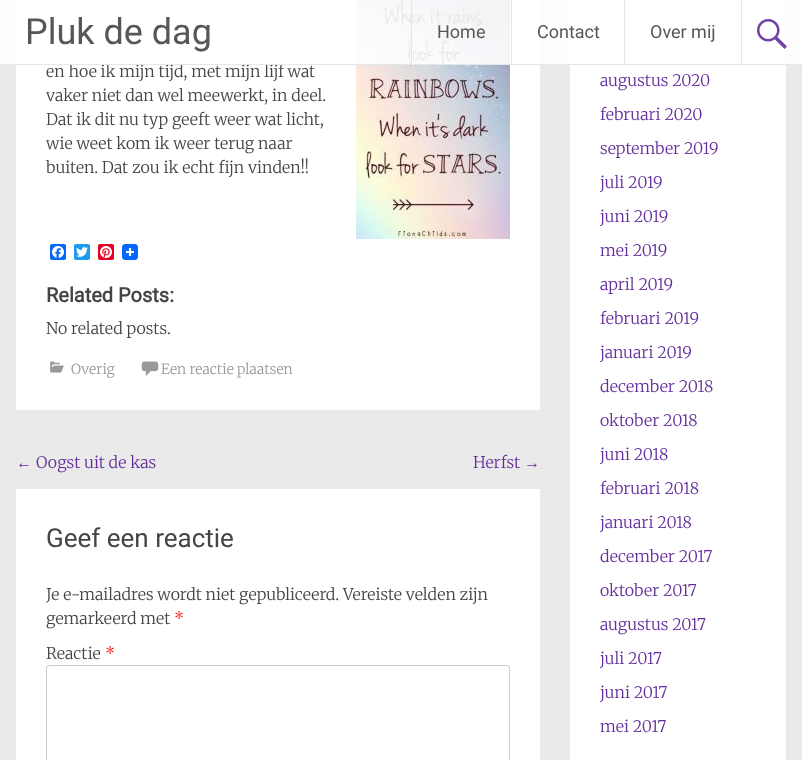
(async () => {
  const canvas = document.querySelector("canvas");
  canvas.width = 802;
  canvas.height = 760;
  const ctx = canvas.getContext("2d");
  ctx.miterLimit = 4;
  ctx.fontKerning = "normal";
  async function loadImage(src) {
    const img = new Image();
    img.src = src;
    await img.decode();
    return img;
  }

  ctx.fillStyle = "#eaeaea";
  ctx.fillRect(0, 0, 802, 760);
  ctx.fillStyle = "#ffffff";
  ctx.fillRect(16, 0, 524, 410);
  ctx.drawImage(await loadImage("img/2.png"), 356, 0, 154, 239);
  ctx.fillStyle = "#0866ff";
  ctx.beginPath();
  ctx.roundRect(50, 244, 16, 16, 2);
  ctx.fill();
  ctx.drawImage(await loadImage("img/3.png"), 52, 246, 12, 12);
  ctx.fillStyle = "#1d9bf0";
  ctx.beginPath();
  ctx.roundRect(74, 244, 16, 16, 2);
  ctx.fill();
  ctx.drawImage(await loadImage("img/4.png"), 76, 247, 12, 10);
  ctx.fillStyle = "#e60023";
  ctx.beginPath();
  ctx.roundRect(98, 244, 16, 16, 2);
  ctx.fill();
  ctx.drawImage(await loadImage("img/5.png"), 100, 246, 12, 12);
  ctx.drawImage(await loadImage("img/6.png"), 122, 244, 16, 16);
  ctx.drawImage(await loadImage("img/7.png"), 50, 361, 14, 12);
  ctx.drawImage(await loadImage("img/8.png"), 141, 361, 18, 15);
  ctx.fillStyle = "#ffffff";
  ctx.fillRect(16, 489, 524, 271);
  ctx.beginPath();
  ctx.roundRect(46.5, 665.5, 463, 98, 2.5);
  ctx.strokeStyle = "#cccccc";
  ctx.stroke();
  ctx.fillRect(570, 0, 216, 760);
  ctx.font = "300 16px Merriweather";
  ctx.fillStyle = "#444444";
  ctx.fillText("en hoe ik mijn tijd, met mijn lijf wat", 46, 77);
  ctx.fillStyle = "rgba(255, 255, 255, 0.9)";
  ctx.fillRect(0, 0, 802, 65);
  ctx.font = "18px Roboto";
  ctx.fillStyle = "#575757";
  ctx.fillText("Over mij", 650, 38);
  ctx.fillStyle = "rgba(225, 228, 230, 0.9)";
  ctx.fillRect(624, 0, 1, 64);
  ctx.fillStyle = "#575757";
  ctx.fillText("Contact", 537, 38);
  ctx.fillStyle = "#e4e7e9";
  ctx.fillRect(511, 0, 1, 64);
  ctx.fillStyle = "#575757";
  ctx.fillText("Home", 437, 38);
  ctx.fillStyle = "rgba(225, 228, 230, 0.9)";
  ctx.fillRect(411, 0, 1, 64);
  ctx.drawImage(await loadImage("img/1.png"), 757, 19, 30, 30);
  ctx.fillStyle = "#e4e7e9";
  ctx.fillRect(741, 0, 1, 64);
  ctx.font = "36px Roboto";
  ctx.fillStyle = "#575757";
  ctx.fillText("Pluk de dag", 25, 44);
  ctx.fillStyle = "rgba(225, 228, 230, 0.9)";
  ctx.fillRect(0, 64, 802, 1);
  ctx.font = "300 16px Merriweather";
  ctx.fillStyle = "#444444";
  for (const [text, x, y] of [
    ["vaker niet dan wel meewerkt, in deel.", 46, 101],
    ["Dat ik dit nu typ geeft weer wat licht,", 46, 125],
    ["wie weet kom ik weer terug naar", 46, 149],
    ["buiten. Dat zou ik echt fijn vinden!!", 46, 173],
  ]) {
    ctx.fillText(text, x, y);
  }
  ctx.font = "bold 20px Roboto";
  ctx.fillText("Related Posts:", 46, 302);
  ctx.font = "300 16px Merriweather";
  ctx.fillText("No related posts.", 46, 334);
  ctx.font = "300 14px Merriweather";
  ctx.fillStyle = "#999999";
  ctx.fillText("Overig", 71, 374);
  ctx.fillText("Een reactie plaatsen", 161, 374);
  ctx.font = "16px Liberation Serif";
  ctx.fillStyle = "#632e9b";
  ctx.fillText("←", 16, 468);
  ctx.font = "300 16px Merriweather";
  ctx.fillText("Oogst uit de kas", 36, 468);
  ctx.fillText("Herfst", 473, 468);
  ctx.font = "16px Liberation Serif";
  ctx.fillText("→", 524, 468);
  ctx.font = "26px Roboto";
  ctx.fillStyle = "#444444";
  ctx.fillText("Geef een reactie", 46, 547);
  ctx.font = "300 16px Merriweather";
  ctx.fillText("Je e-mailadres wordt niet gepubliceerd. Vereiste velden zijn", 46, 600);
  ctx.fillText("gemarkeerd met", 46, 624);
  ctx.fillStyle = "#ff0000";
  ctx.fillText("*", 174, 624);
  ctx.fillStyle = "#444444";
  ctx.fillText("Reactie", 46, 659);
  ctx.fillStyle = "#ff0000";
  ctx.fillText("*", 105, 659);
  ctx.fillStyle = "#632e9b";
  for (const [text, x, y] of [
    ["augustus 2020", 600, 86],
    ["februari 2020", 600, 120],
    ["september 2019", 600, 154],
    ["juli 2019", 600, 188],
    ["juni 2019", 600, 222],
    ["mei 2019", 600, 256],
    ["april 2019", 600, 290],
    ["februari 2019", 600, 324],
    ["januari 2019", 600, 358],
    ["december 2018", 600, 392],
    ["oktober 2018", 600, 426],
    ["juni 2018", 600, 460],
    ["februari 2018", 600, 494],
    ["januari 2018", 600, 528],
    ["december 2017", 600, 562],
    ["oktober 2017", 600, 596],
    ["augustus 2017", 600, 630],
    ["juli 2017", 600, 664],
    ["juni 2017", 600, 698],
    ["mei 2017", 600, 732],
  ]) {
    ctx.fillText(text, x, y);
  }
})();
